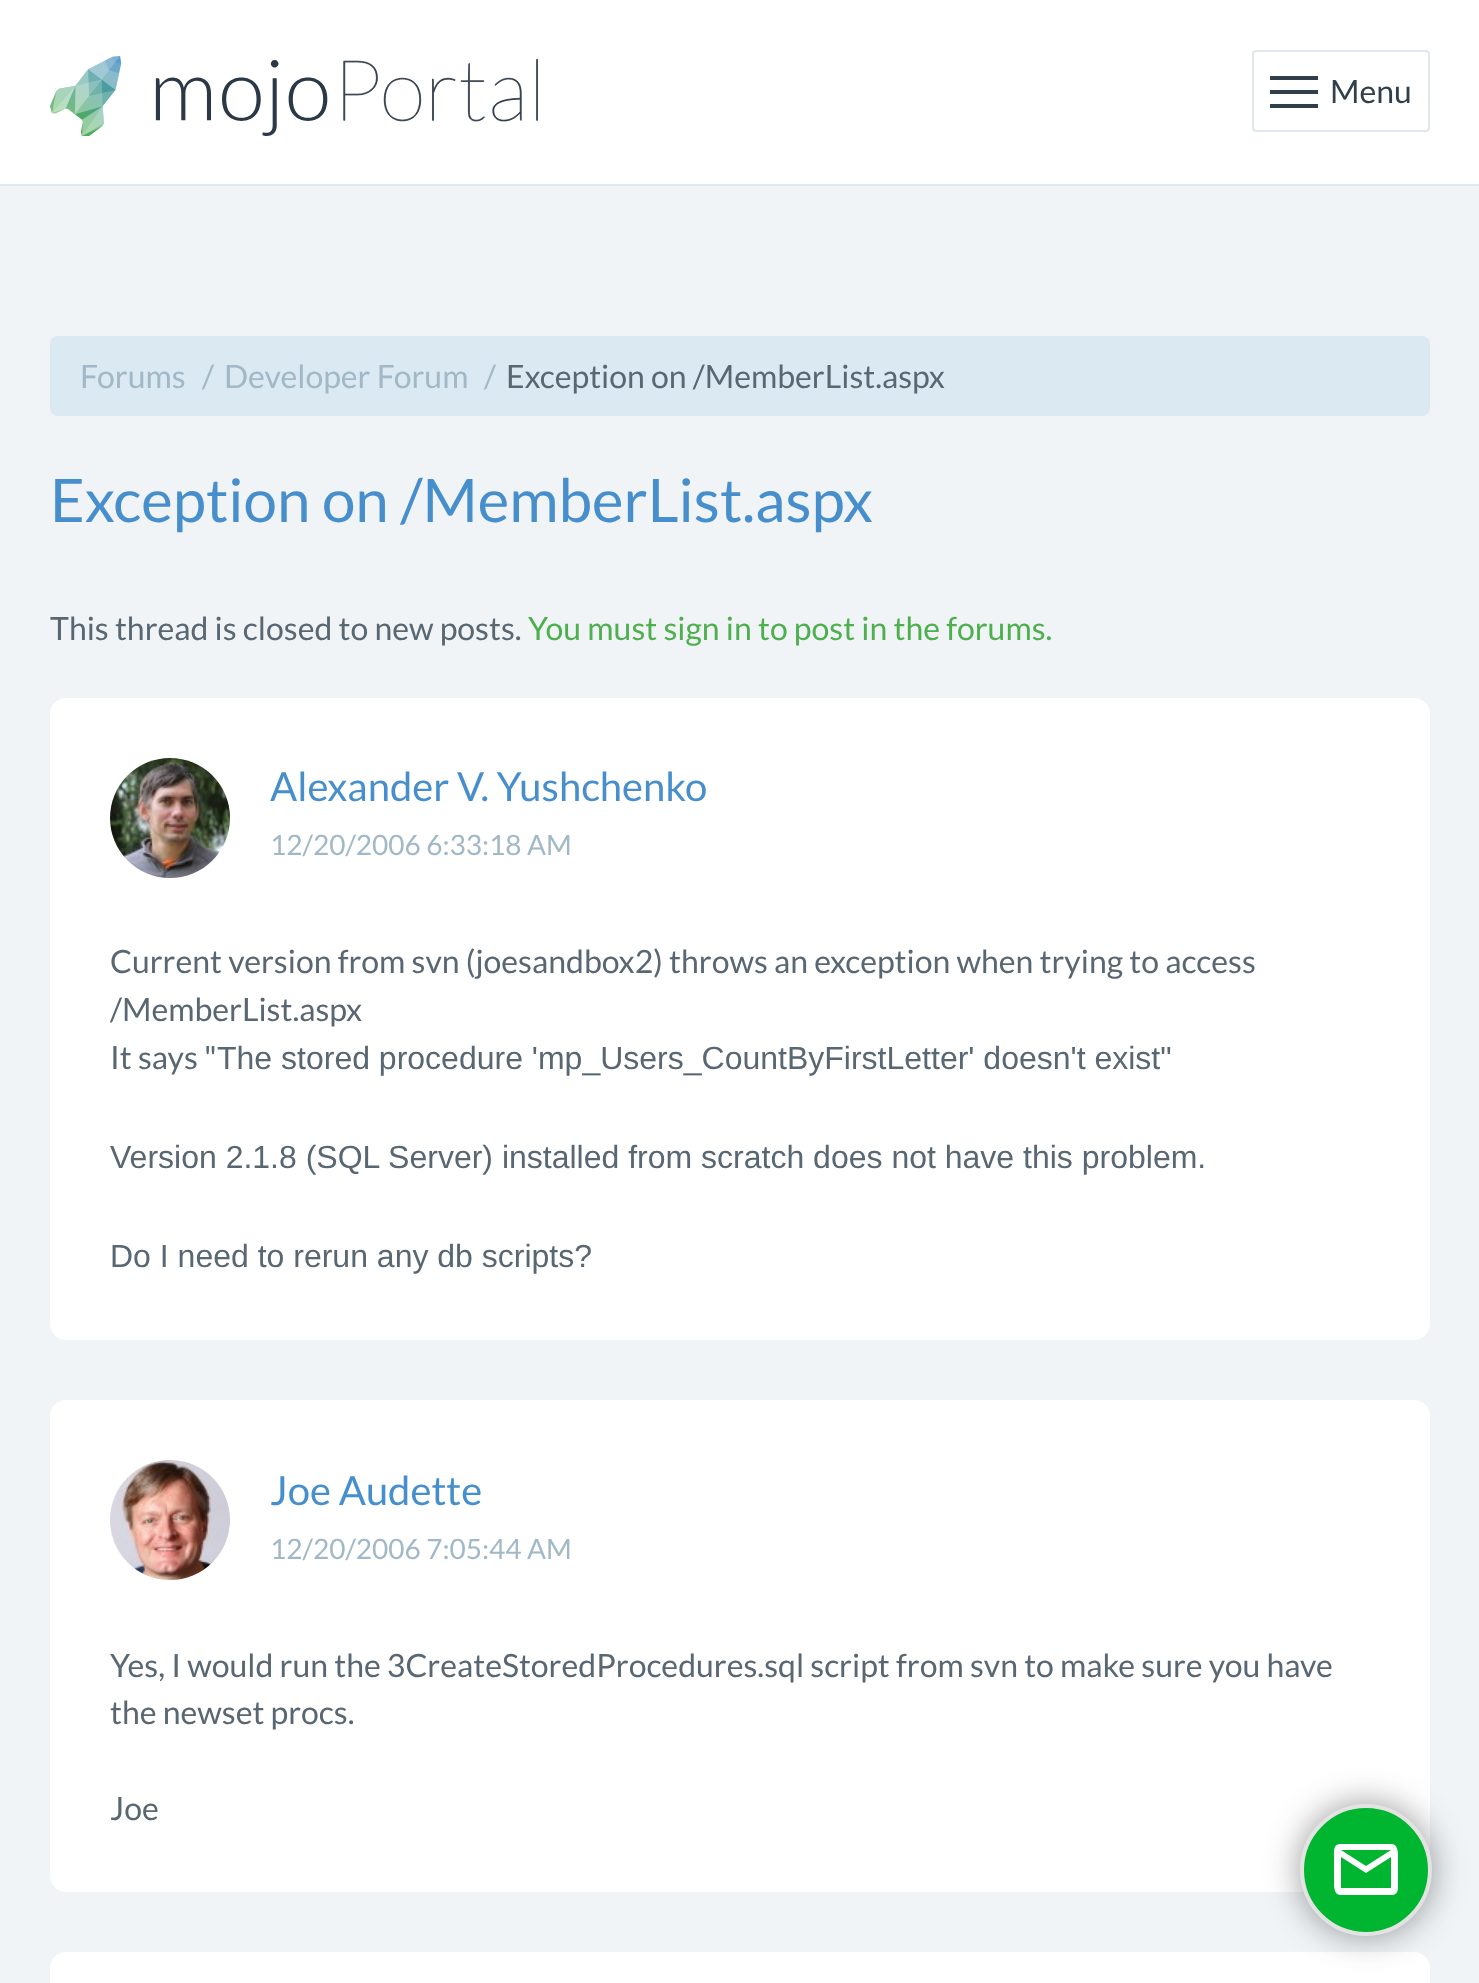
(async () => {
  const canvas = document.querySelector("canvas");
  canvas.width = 1479;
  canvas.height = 1983;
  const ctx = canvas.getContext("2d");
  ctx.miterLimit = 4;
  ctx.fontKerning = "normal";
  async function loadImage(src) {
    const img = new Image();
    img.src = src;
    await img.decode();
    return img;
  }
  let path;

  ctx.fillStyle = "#f0f4f7";
  ctx.fillRect(0, 0, 1479, 1983);
  ctx.fillStyle = "#ffffff";
  ctx.fillRect(0, 0, 1479, 184);
  ctx.fillStyle = "#dbe9f2";
  ctx.fillRect(0, 184, 1479, 2);
  ctx.drawImage(await loadImage("img/1.png"), 50, 56, 488, 80);
  ctx.beginPath();
  ctx.roundRect(1253, 51, 176, 80, 3);
  ctx.strokeStyle = "#e2e6ed";
  ctx.lineWidth = 2;
  ctx.stroke();
  for (const [x, y, w, h, color] of [
    [1270, 76, 48, 4, "#313f4b"],
    [1270, 90, 48, 4, "#313f4b"],
    [1270, 104, 48, 4, "#313f4b"],
  ]) {
    ctx.fillStyle = color;
    ctx.fillRect(x, y, w, h);
  }
  ctx.fillStyle = "#dbe9f2";
  ctx.beginPath();
  ctx.roundRect(50, 336, 1380, 80, 8);
  ctx.fill();
  ctx.fillStyle = "#ffffff";
  ctx.beginPath();
  ctx.roundRect(50, 698, 1380, 642, 16);
  ctx.fill();
  ctx.drawImage(await loadImage("img/2.png"), 110, 758, 120, 120);
  ctx.beginPath();
  ctx.roundRect(50, 1400, 1380, 492, 16);
  ctx.fill();
  ctx.drawImage(await loadImage("img/3.png"), 110, 1460, 120, 120);
  ctx.beginPath();
  ctx.roundRect(50, 1952, 1380, 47, 16);
  ctx.fill();
  ctx.fillStyle = "rgba(50, 50, 50, 0.5)";
  ctx.filter = "blur(17px)";
  ctx.beginPath();
  ctx.roundRect(1300, 1804, 132, 132, 66);
  ctx.fill();
  ctx.filter = "none";
  ctx.fillStyle = "#00b530";
  ctx.beginPath();
  ctx.arc(1366, 1870, 64, 0, Math.PI * 2);
  ctx.fill();
  ctx.strokeStyle = "#e3e3e3";
  ctx.lineWidth = 4;
  ctx.stroke();
  ctx.fillStyle = "#ffffff";
  path = new Path2D("M1391 1844C1398 1844 1398 1852 1398 1857V1882C1398 1887 1399 1894 1393 1895H1341C1334 1895 1334 1887 1334 1882V1857C1334 1852 1333 1845 1339 1844ZM1391 1888V1857L1366 1873L1341 1857V1888ZM1366 1866L1391 1850H1341Z");
  ctx.fill(path);
  ctx.font = "32px Lato";
  ctx.fillStyle = "#313f4b";
  ctx.fillText("Menu", 1330, 103);
  ctx.fillStyle = "#a1b8c6";
  for (const [text, x, y] of [
    ["Forums", 80, 388],
    ["/", 202, 388],
    ["Developer Forum", 224, 388],
    ["/", 484, 388],
  ]) {
    ctx.fillText(text, x, y);
  }
  ctx.fillStyle = "#596773";
  ctx.fillText("Exception on /MemberList.aspx", 506, 388);
  ctx.font = "60px Lato";
  ctx.fillStyle = "#478fcc";
  ctx.fillText("Exception on /MemberList.aspx", 50, 522);
  ctx.font = "32px Lato";
  ctx.fillStyle = "#596773";
  ctx.fillText("This thread is closed to new posts.", 50, 640);
  ctx.fillStyle = "#4daf4e";
  ctx.fillText("You must sign in to post in the forums.", 528, 640);
  ctx.font = "40px Lato";
  ctx.fillStyle = "#478fcc";
  ctx.fillText("Alexander V. Yushchenko", 270, 801);
  ctx.font = "32px Lato";
  ctx.fillStyle = "#596773";
  for (const [text, x, y] of [
    ["Current version from svn (joesandbox2) throws an exception when trying to access", 110, 973],
    ["/MemberList.aspx", 110, 1021],
    ["It says \"", 110, 1069],
  ]) {
    ctx.fillText(text, x, y);
  }
  ctx.font = "32px Liberation Sans";
  for (const [text, x, y] of [
    ["The stored procedure 'mp_Users_CountByFirstLetter' doesn't exist\"", 217, 1069],
    ["Version 2.1.8 (SQL Server) installed from scratch does not have this problem.", 110, 1168],
    ["Do I need to rerun any db scripts?", 110, 1267],
  ]) {
    ctx.fillText(text, x, y);
  }
  ctx.font = "28px Lato";
  ctx.fillStyle = "#a1b8c6";
  ctx.fillText("12/20/2006 6:33:18 AM", 270, 855);
  ctx.font = "40px Lato";
  ctx.fillStyle = "#478fcc";
  ctx.fillText("Joe Audette", 270, 1505);
  ctx.font = "32px Lato";
  ctx.fillStyle = "#596773";
  for (const [text, x, y] of [
    ["Yes, I would run the 3CreateStoredProcedures.sql script from svn to make sure you have", 110, 1677],
    ["the newset procs.", 110, 1724],
    ["Joe", 110, 1820],
  ]) {
    ctx.fillText(text, x, y);
  }
  ctx.font = "28px Lato";
  ctx.fillStyle = "#a1b8c6";
  ctx.fillText("12/20/2006 7:05:44 AM", 270, 1559);
})();
